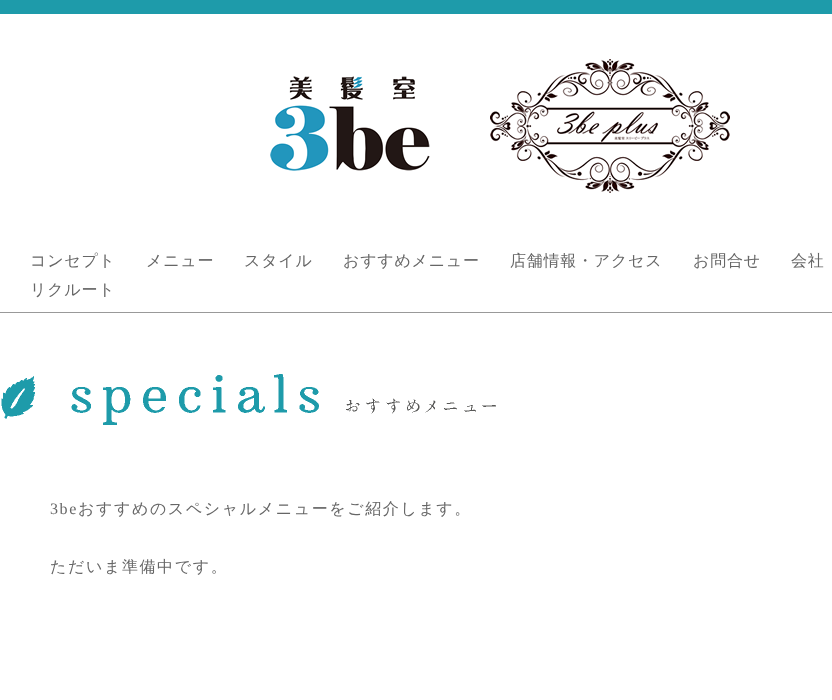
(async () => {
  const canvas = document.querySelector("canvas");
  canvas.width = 832;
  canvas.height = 700;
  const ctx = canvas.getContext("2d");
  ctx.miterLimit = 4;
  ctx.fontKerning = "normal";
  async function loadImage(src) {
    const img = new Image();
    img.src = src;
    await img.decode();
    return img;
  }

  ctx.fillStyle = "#ffffff";
  ctx.fillRect(0, 0, 832, 700);
  ctx.fillStyle = "#1e9baa";
  ctx.fillRect(0, 0, 832, 14);
  ctx.drawImage(await loadImage("img/1.png"), 270, 76, 160, 95);
  ctx.drawImage(await loadImage("img/2.png"), 490, 59, 240, 134);
  ctx.fillStyle = "#999999";
  ctx.fillRect(0, 312, 832, 1);
  ctx.drawImage(await loadImage("img/3.png"), 1, 374, 495, 51);
  ctx.letterSpacing = "0.75px";
  ctx.font = "500 16px WenQuanYi Zen Hei";
  ctx.fillStyle = "#666666";
  for (const [text, x, y] of [
    ["コンセプト", 30, 266],
    ["メニュー", 146, 266],
    ["スタイル", 244, 266],
    ["おすすめメニュー", 343, 266],
    ["店舗情報・アクセス", 510, 266],
    ["お問合せ", 693, 266],
    ["会社", 791, 266],
    ["リクルート", 30, 295],
  ]) {
    ctx.fillText(text, x, y);
  }
  ctx.letterSpacing = "1.6px";
  ctx.font = "16px Liberation Serif";
  ctx.fillText("3be", 50, 514);
  ctx.font = "500 16px WenQuanYi Zen Hei";
  ctx.fillText("おすすめのスペシャルメニューをご紹介します。", 78, 514);
  ctx.fillText("ただいま準備中です。", 50, 572);
})();
